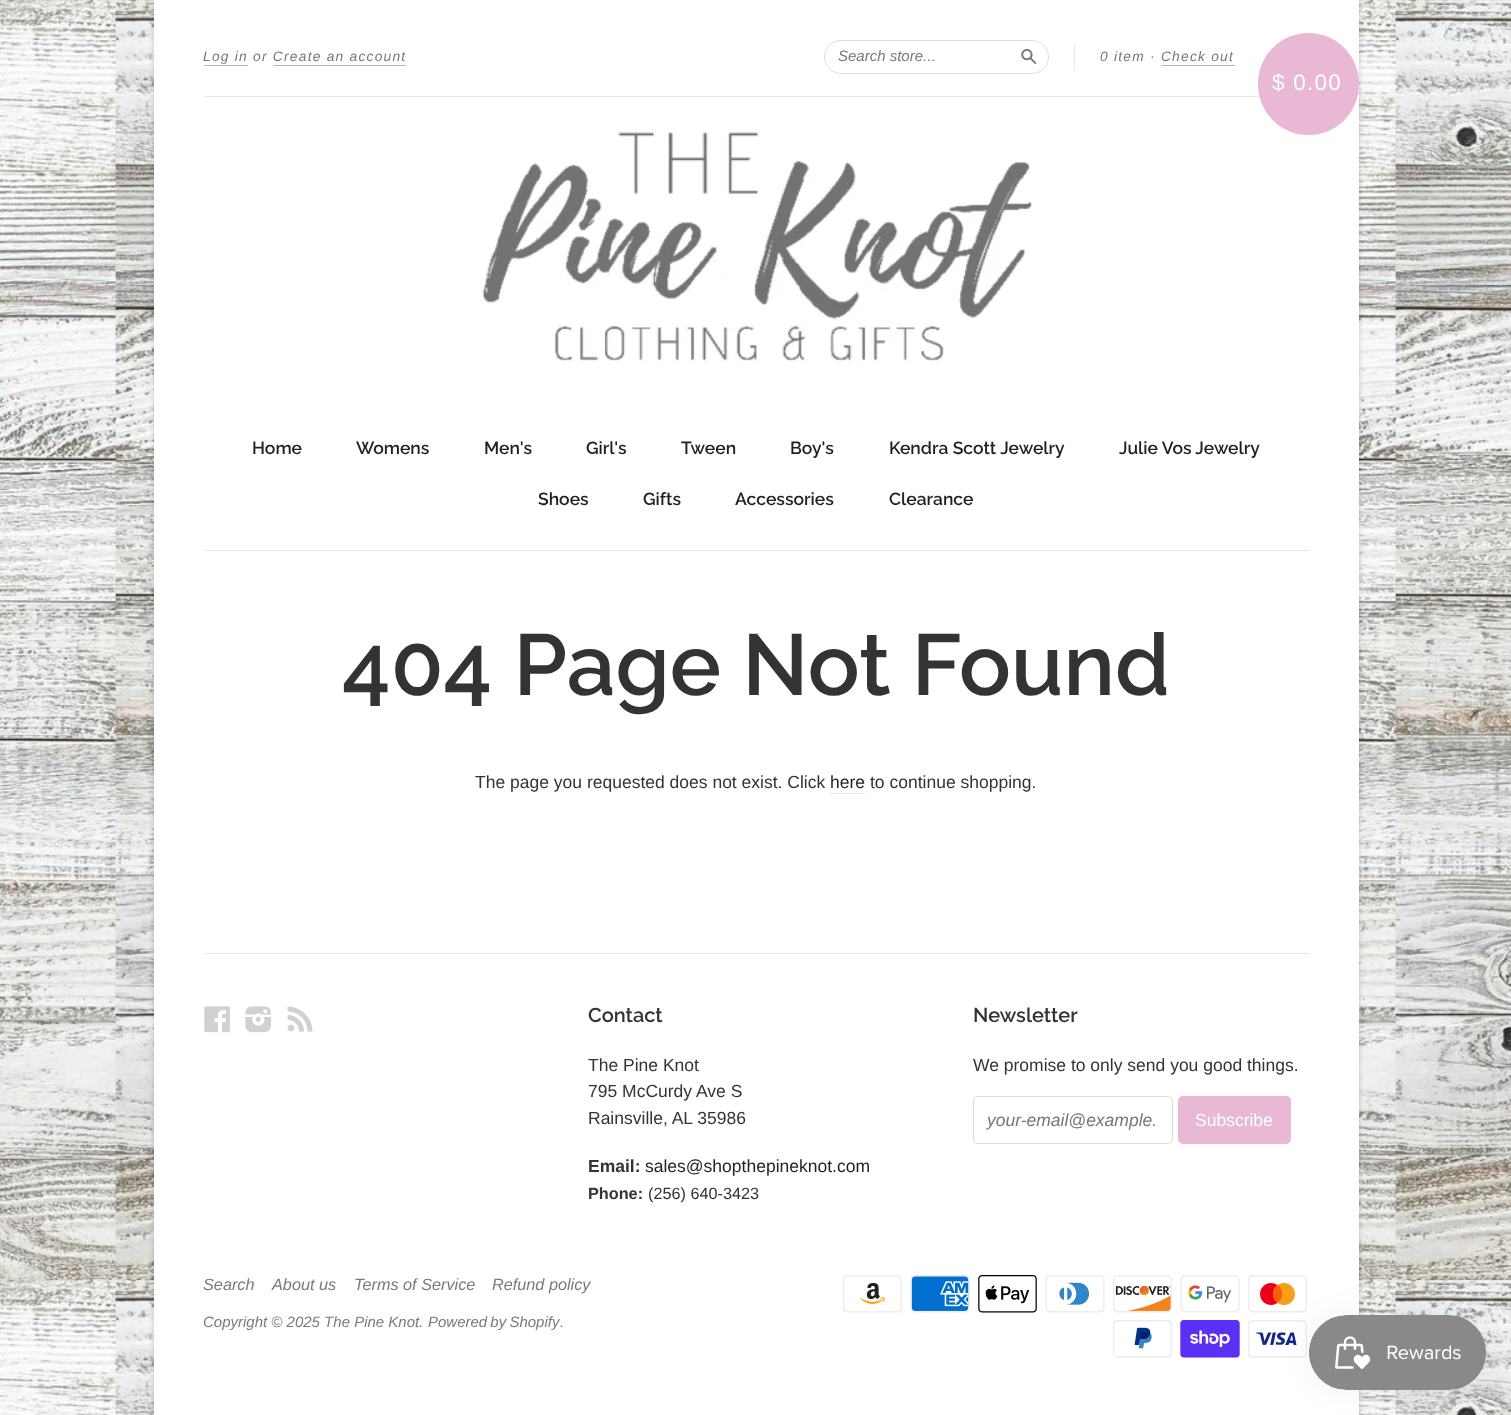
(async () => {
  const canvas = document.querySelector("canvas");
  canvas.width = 1511;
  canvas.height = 1415;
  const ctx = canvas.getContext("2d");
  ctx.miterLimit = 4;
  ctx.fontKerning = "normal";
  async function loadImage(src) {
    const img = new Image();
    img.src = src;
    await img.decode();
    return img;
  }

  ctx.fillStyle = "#ffffff";
  ctx.fillRect(0, 0, 1511, 1415);
  ctx.drawImage(await loadImage("img/1.png"), 0, 0, 1511, 1415);
  ctx.fillStyle = "rgba(0, 0, 0, 0.2)";
  ctx.filter = "blur(2.5px)";
  ctx.beginPath();
  ctx.rect(154, 0, 1205, 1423);
  ctx.fill();
  ctx.filter = "none";
  for (const [x, y, w, h, color] of [
    [154, 0, 1205, 1415, "#ffffff"],
    [204, 550, 1105, 1, "#e8e8e8"],
    [204, 96, 1056, 1, "#e8e8e8"],
    [204, 65, 44, 1, "#b5b5b5"],
    [273, 65, 133, 1, "#b5b5b5"],
  ]) {
    ctx.fillStyle = color;
    ctx.fillRect(x, y, w, h);
  }
  ctx.beginPath();
  ctx.roundRect(824.5, 40.5, 224, 33, 16.5);
  ctx.strokeStyle = "#dedede";
  ctx.stroke();
  ctx.drawImage(await loadImage("img/2.png"), 1021, 49, 16, 15);
  ctx.fillStyle = "#e8e8e8";
  ctx.fillRect(1074, 44, 1, 26);
  ctx.fillStyle = "#b5b5b5";
  ctx.fillRect(1161, 65, 74, 1);
  ctx.fillStyle = "#e8b8d4";
  ctx.beginPath();
  ctx.roundRect(1258, 33, 101, 102, 50.5);
  ctx.fill();
  ctx.drawImage(await loadImage("img/3.png"), 480, 132, 552, 230);
  ctx.fillStyle = "#e8e8e8";
  ctx.fillRect(830, 793, 35, 1);
  ctx.fillRect(204, 953, 1105, 1);
  ctx.drawImage(await loadImage("img/4.png"), 204, 1006, 26, 27);
  ctx.drawImage(await loadImage("img/5.png"), 245, 1006, 26, 27);
  ctx.drawImage(await loadImage("img/6.png"), 287, 1006, 26, 26);
  ctx.beginPath();
  ctx.roundRect(973.5, 1096.5, 199, 47, 4.5);
  ctx.stroke();
  ctx.fillStyle = "#e8b8d4";
  ctx.beginPath();
  ctx.roundRect(1178, 1096, 113, 48, 5);
  ctx.fill();
  ctx.drawImage(await loadImage("img/7.png"), 843, 1275, 59, 38);
  ctx.drawImage(await loadImage("img/8.png"), 910, 1275, 60, 38);
  ctx.drawImage(await loadImage("img/9.png"), 978, 1275, 59, 38);
  ctx.drawImage(await loadImage("img/10.png"), 1045, 1275, 60, 38);
  ctx.drawImage(await loadImage("img/11.png"), 1113, 1275, 59, 38);
  ctx.drawImage(await loadImage("img/12.png"), 1180, 1275, 60, 38);
  ctx.drawImage(await loadImage("img/13.png"), 1248, 1275, 59, 38);
  ctx.drawImage(await loadImage("img/14.png"), 1113, 1320, 59, 38);
  ctx.drawImage(await loadImage("img/15.png"), 1180, 1320, 60, 38);
  ctx.drawImage(await loadImage("img/16.png"), 1248, 1320, 59, 38);
  ctx.fillStyle = "rgba(0, 0, 0, 0.05)";
  ctx.filter = "blur(15.5px)";
  ctx.beginPath();
  ctx.roundRect(1309, 1315, 177, 75, 37.5);
  ctx.fill();
  ctx.filter = "none";
  ctx.drawImage(await loadImage("img/17.png"), 1309, 1315, 177, 75);
  ctx.letterSpacing = "1.25px";
  ctx.font = "italic 13.75px Liberation Sans";
  ctx.fillStyle = "#777777";
  ctx.fillText("Log in or Create an account", 203, 61);
  ctx.letterSpacing = "0px";
  ctx.font = "italic 15px Liberation Sans";
  ctx.fillText("Search store...", 838, 61);
  ctx.letterSpacing = "1.25px";
  ctx.font = "italic 13.75px Liberation Sans";
  ctx.fillText("0 item · Check out", 1100, 61);
  ctx.font = "22.5px Liberation Sans";
  ctx.fillStyle = "#ffffff";
  ctx.fillText("$ 0.00", 1272, 90);
  ctx.letterSpacing = "0px";
  ctx.font = "100 17.5px Raleway";
  ctx.fillStyle = "#211f1f";
  for (const [text, x, y] of [
    ["Home", 252, 454],
    ["Womens", 356, 454],
    ["Men's", 484, 454],
    ["Girl's", 586, 454],
    ["Tween", 681, 454],
    ["Boy's", 790, 454],
    ["Kendra Scott Jewelry", 889, 454],
    ["Julie Vos Jewelry", 1119, 454],
    ["Shoes", 538, 505],
    ["Gifts", 643, 505],
    ["Accessories", 735, 505],
    ["Clearance", 889, 505],
  ]) {
    ctx.fillText(text, x, y);
  }
  ctx.font = "100 86.25px Raleway";
  ctx.fillStyle = "#333333";
  ctx.fillText("404 Page Not Found", 342, 695);
  ctx.font = "17.5px Liberation Sans";
  ctx.fillText("The page you requested does not exist. Click", 475, 788);
  ctx.fillStyle = "#211f1f";
  ctx.fillText("here", 830, 788);
  ctx.fillStyle = "#333333";
  ctx.fillText("to continue shopping.", 870, 788);
  ctx.font = "100 20px Raleway";
  ctx.fillText("Contact", 588, 1022);
  ctx.font = "17.5px Liberation Sans";
  for (const [text, x, y] of [
    ["The Pine Knot", 588, 1071],
    ["795 McCurdy Ave S", 588, 1097],
    ["Rainsville, AL 35986", 588, 1124],
  ]) {
    ctx.fillText(text, x, y);
  }
  ctx.font = "bold 17.5px Liberation Sans";
  ctx.fillText("Email:", 588, 1172);
  ctx.font = "17.5px Liberation Sans";
  ctx.fillStyle = "#211f1f";
  ctx.fillText("sales@shopthepineknot.com", 645, 1172);
  ctx.font = "bold 16.25px Liberation Sans";
  ctx.fillStyle = "#333333";
  ctx.fillText("Phone:", 588, 1199);
  ctx.font = "16.25px Liberation Sans";
  ctx.fillText("(256) 640-3423", 648, 1199);
  ctx.font = "100 20px Raleway";
  ctx.fillText("Newsletter", 973, 1022);
  ctx.font = "17.5px Liberation Sans";
  ctx.fillText("We promise to only send you good things.", 973, 1071);
  ctx.font = "italic 17.5px Liberation Sans";
  ctx.fillStyle = "#777777";
  ctx.fillText("your-email@example.", 987, 1126);
  ctx.font = "17.5px Liberation Sans";
  ctx.fillStyle = "#ffffff";
  ctx.fillText("Subscribe", 1195, 1126);
  ctx.font = "italic 16.25px Liberation Sans";
  ctx.fillStyle = "#807777";
  for (const [text, x, y] of [
    ["Search", 203, 1290],
    ["About us", 272, 1290],
    ["Terms of Service", 354, 1290],
    ["Refund policy", 492, 1290],
  ]) {
    ctx.fillText(text, x, y);
  }
  ctx.font = "italic 15px Liberation Sans";
  ctx.fillText("Copyright © 2025 The Pine Knot.", 203, 1327);
  ctx.wordSpacing = "-1px";
  ctx.fillText("Powered by Shopify", 428, 1327);
  ctx.wordSpacing = "0px";
  ctx.fillText(".", 560, 1327);
})();
